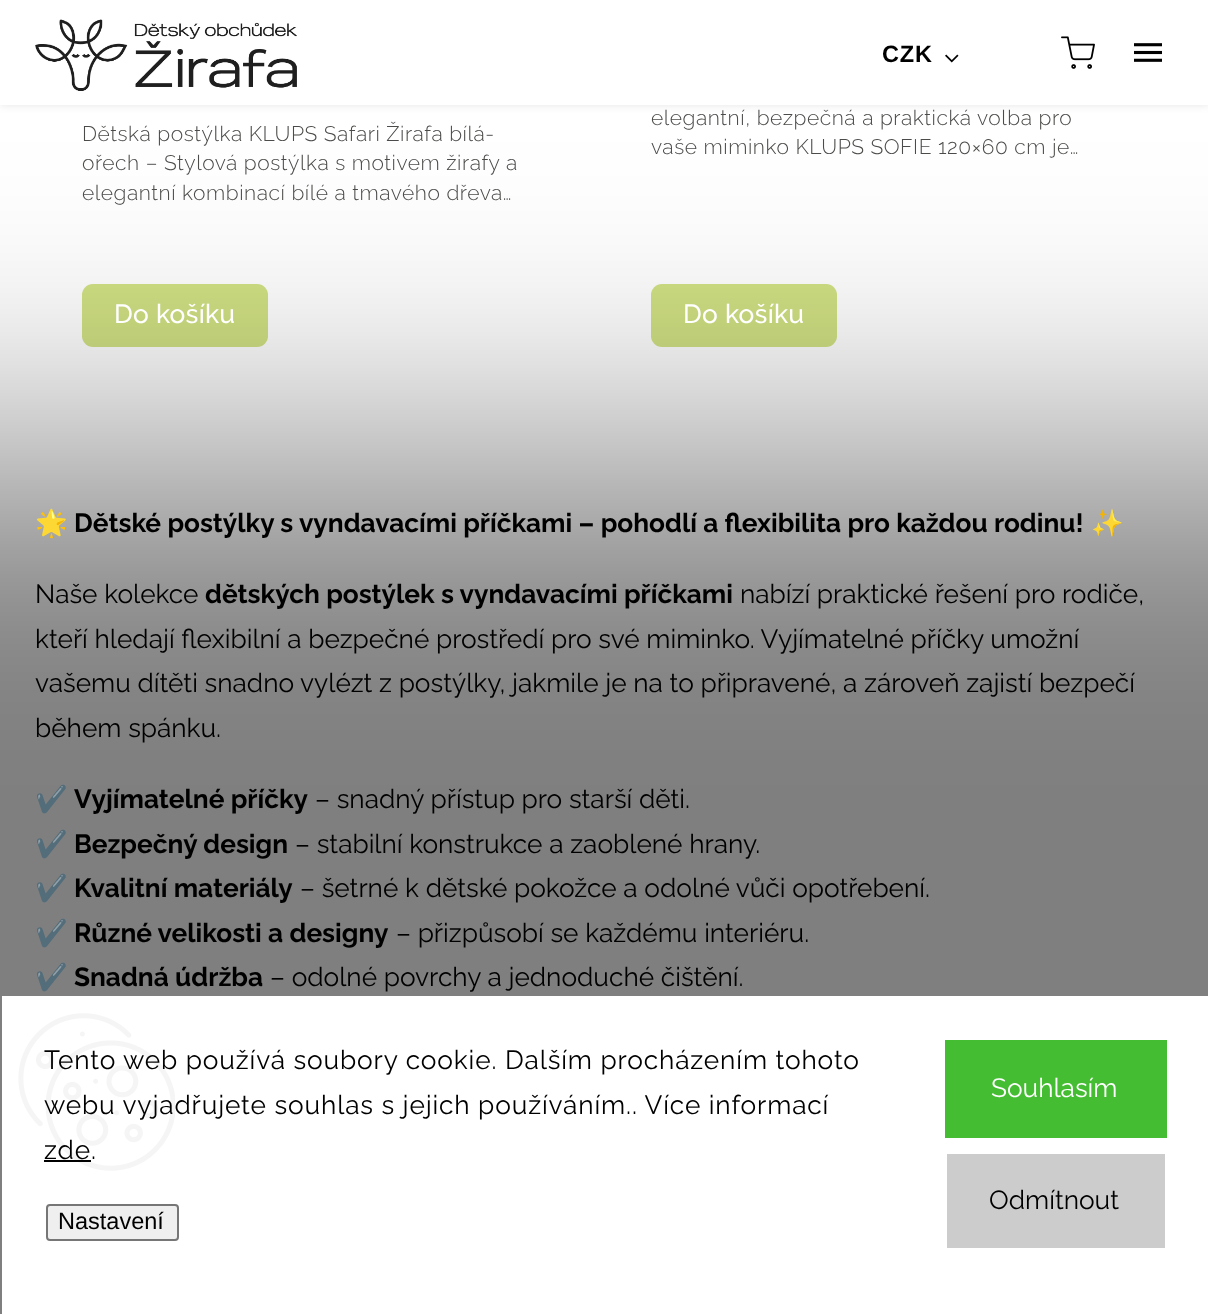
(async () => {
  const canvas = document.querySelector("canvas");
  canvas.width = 1208;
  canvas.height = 1314;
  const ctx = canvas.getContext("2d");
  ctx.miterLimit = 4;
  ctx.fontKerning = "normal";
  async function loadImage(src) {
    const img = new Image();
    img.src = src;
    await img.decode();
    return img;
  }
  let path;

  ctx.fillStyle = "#ffffff";
  ctx.fillRect(0, 0, 1208, 1314);
  ctx.fillStyle = "rgba(0, 0, 0, 0.1)";
  ctx.filter = "blur(4.5px)";
  ctx.beginPath();
  ctx.rect(0, 0, 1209, 105);
  ctx.fill();
  ctx.filter = "none";
  ctx.fillStyle = "#ffffff";
  ctx.fillRect(0, 0, 1208, 105);
  ctx.drawImage(await loadImage("img/1.png"), 35, 19, 262, 72);
  ctx.drawImage(await loadImage("img/2.png"), 945, 54, 14, 9);
  ctx.drawImage(await loadImage("img/3.png"), 1061, 36, 34, 33);
  ctx.drawImage(await loadImage("img/4.png"), 1134, 43, 28, 19);
  ctx.fillStyle = "#d1e284";
  ctx.beginPath();
  ctx.roundRect(82, 284, 186, 63, 11);
  ctx.fill();
  ctx.beginPath();
  ctx.roundRect(651, 284, 186, 63, 11);
  ctx.fill();
  ctx.save();
  path = new Path2D("M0 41H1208V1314H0ZM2 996H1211V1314H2Z");
  ctx.clip(path, "evenodd");
  ctx.fillStyle = "rgba(0, 0, 0, 0.5)";
  ctx.filter = "blur(140px)";
  ctx.beginPath();
  ctx.rect(-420, 462, 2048, 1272);
  ctx.fill();
  ctx.filter = "none";
  ctx.restore();
  ctx.drawImage(await loadImage("img/5.png"), 18, 1013, 157, 158);
  ctx.fillStyle = "#000000";
  ctx.fillRect(44, 1160, 47, 2);
  ctx.fillStyle = "#efefef";
  ctx.beginPath();
  ctx.roundRect(47, 1205, 131, 35, 3);
  ctx.fill();
  ctx.strokeStyle = "#767676";
  ctx.lineWidth = 2;
  ctx.stroke();
  ctx.fillStyle = "#44bd32";
  ctx.fillRect(945, 1040, 222, 98);
  ctx.fillStyle = "#cccccc";
  ctx.fillRect(947, 1154, 218, 94);
  ctx.letterSpacing = "0.88px";
  ctx.font = "bold 23.5px Liberation Sans";
  ctx.fillStyle = "#000000";
  ctx.fillText("CZK", 882, 62);
  ctx.letterSpacing = "0.55px";
  ctx.font = "300 21px Raleway";
  ctx.fillStyle = "#4b4b49";
  for (const [text, x, y] of [
    ["Dětská postýlka KLUPS Safari Žirafa bílá-", 82, 141],
    ["ořech – Stylová postýlka s motivem žirafy a", 82, 170],
    ["elegantní kombinací bílé a tmavého dřeva…", 82, 200],
  ]) {
    ctx.fillText(text, x, y);
  }
  ctx.letterSpacing = "0.25px";
  ctx.font = "500 26.25px Raleway";
  ctx.fillStyle = "#ffffff";
  ctx.fillText("Do košíku", 114, 323);
  ctx.letterSpacing = "0.55px";
  ctx.font = "300 21px Raleway";
  ctx.fillStyle = "#4b4b49";
  ctx.fillText("elegantní, bezpečná a praktická volba pro", 651, 125);
  ctx.fillText("vaše miminko KLUPS SOFIE 120×60 cm je…", 651, 154);
  ctx.letterSpacing = "0.25px";
  ctx.font = "500 26.25px Raleway";
  ctx.fillStyle = "#ffffff";
  ctx.fillText("Do košíku", 683, 323);
  ctx.letterSpacing = "0px";
  ctx.font = "26.25px Noto Color Emoji";
  ctx.fillStyle = "#000000";
  ctx.fillText("🌟", 35, 532);
  ctx.font = "bold 26.25px Raleway";
  ctx.fillText("Dětské postýlky s vyndavacími příčkami – pohodlí a flexibilita pro každou rodinu!", 74, 532);
  ctx.font = "26.25px Noto Color Emoji";
  ctx.fillText("✨", 1091, 532);
  ctx.font = "26.25px Raleway";
  ctx.fillText("Naše kolekce", 35, 603);
  ctx.font = "bold 26.25px Raleway";
  ctx.fillText("dětských postýlek s vyndavacími příčkami", 205, 603);
  ctx.font = "26.25px Raleway";
  for (const [text, x, y] of [
    ["nabízí praktické řešení pro rodiče,", 740, 603],
    ["kteří hledají flexibilní a bezpečné prostředí pro své miminko. Vyjímatelné příčky umožní", 35, 648],
    ["vašemu dítěti snadno vylézt z postýlky, jakmile je na to připravené, a zároveň zajistí bezpečí", 35, 692],
    ["během spánku.", 35, 737],
  ]) {
    ctx.fillText(text, x, y);
  }
  ctx.font = "26.25px Noto Color Emoji";
  ctx.fillText("✔️", 35, 808);
  ctx.font = "bold 26.25px Raleway";
  ctx.fillText("Vyjímatelné příčky", 74, 808);
  ctx.font = "26.25px Raleway";
  ctx.fillText("– snadný přístup pro starší děti.", 315, 808);
  ctx.font = "26.25px Noto Color Emoji";
  ctx.fillText("✔️", 35, 853);
  ctx.font = "bold 26.25px Raleway";
  ctx.fillText("Bezpečný design", 74, 853);
  ctx.font = "26.25px Raleway";
  ctx.fillText("– stabilní konstrukce a zaoblené hrany.", 295, 853);
  ctx.font = "26.25px Noto Color Emoji";
  ctx.fillText("✔️", 35, 897);
  ctx.font = "bold 26.25px Raleway";
  ctx.fillText("Kvalitní materiály", 74, 897);
  ctx.font = "26.25px Raleway";
  ctx.fillText("– šetrné k dětské pokožce a odolné vůči opotřebení.", 300, 897);
  ctx.font = "26.25px Noto Color Emoji";
  ctx.fillText("✔️", 35, 942);
  ctx.font = "bold 26.25px Raleway";
  ctx.fillText("Různé velikosti a designy", 74, 942);
  ctx.font = "26.25px Raleway";
  ctx.fillText("– přizpůsobí se každému interiéru.", 396, 942);
  ctx.font = "26.25px Noto Color Emoji";
  ctx.fillText("✔️", 35, 986);
  ctx.font = "bold 26.25px Raleway";
  ctx.fillText("Snadná údržba", 74, 986);
  ctx.font = "26.25px Raleway";
  ctx.fillText("– odolné povrchy a jednoduché čištění.", 270, 986);
  ctx.letterSpacing = "0.88px";
  for (const [text, x, y] of [
    ["Tento web používá soubory cookie. Dalším procházením tohoto", 44, 1069],
    ["webu vyjadřujete souhlas s jejich používáním.. Více informací", 44, 1114],
    ["zde.", 44, 1159],
  ]) {
    ctx.fillText(text, x, y);
  }
  ctx.letterSpacing = "0px";
  ctx.font = "23.5px Liberation Sans";
  ctx.fillText("Nastavení", 58, 1229);
  ctx.font = "26.25px Raleway";
  ctx.fillStyle = "#ffffff";
  ctx.fillText("Souhlasím", 991, 1097);
  ctx.fillStyle = "#000000";
  ctx.fillText("Odmítnout", 989, 1209);
})();
